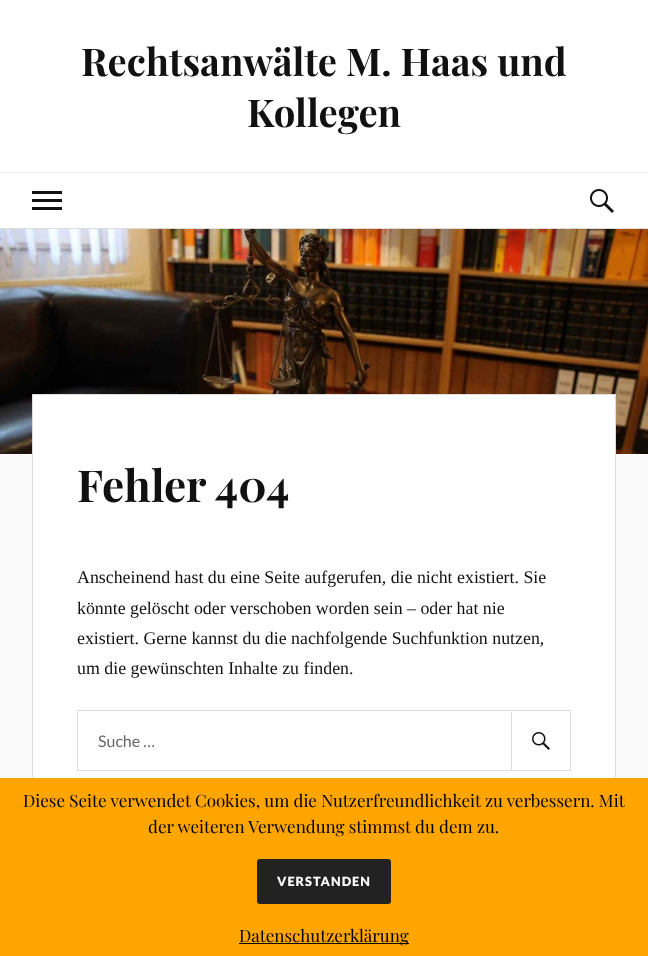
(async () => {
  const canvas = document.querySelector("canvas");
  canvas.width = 648;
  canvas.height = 956;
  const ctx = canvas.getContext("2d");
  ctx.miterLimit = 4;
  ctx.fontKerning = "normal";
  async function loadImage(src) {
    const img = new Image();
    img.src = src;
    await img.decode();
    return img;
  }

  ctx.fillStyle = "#fafafa";
  ctx.fillRect(0, 0, 648, 956);
  for (const [x, y, w, h, color] of [
    [0, 0, 648, 172, "#ffffff"],
    [0, 173, 648, 55, "#ffffff"],
    [0, 172, 648, 1, "#eeeeee"],
    [32, 191, 30, 3, "#111111"],
    [32, 199, 30, 3, "#111111"],
    [32, 207, 30, 3, "#111111"],
  ]) {
    ctx.fillStyle = color;
    ctx.fillRect(x, y, w, h);
  }
  ctx.drawImage(await loadImage("img/1.png"), 590, 189, 24, 24);
  ctx.fillStyle = "#dddddd";
  ctx.fillRect(0, 228, 648, 1);
  ctx.drawImage(await loadImage("img/2.png"), 0, 229, 648, 225);
  ctx.fillStyle = "#ffffff";
  ctx.fillRect(33, 395, 582, 383);
  ctx.strokeStyle = "#dddddd";
  ctx.strokeRect(32.5, 394.5, 583, 437);
  ctx.strokeRect(77.5, 710.5, 493, 60);
  ctx.fillStyle = "#dddddd";
  ctx.fillRect(511, 712, 1, 58);
  ctx.drawImage(await loadImage("img/3.png"), 532, 732, 18, 18);
  ctx.fillStyle = "#ffa500";
  ctx.fillRect(0, 778, 648, 178);
  ctx.fillStyle = "#222222";
  ctx.beginPath();
  ctx.roundRect(257, 859, 134, 45, 3);
  ctx.fill();
  ctx.fillStyle = "#000000";
  ctx.fillRect(239, 943, 170, 1);
  ctx.font = "bold 38.25px Playfair Display";
  ctx.fillStyle = "#111111";
  ctx.fillText("Rechtsanwälte M. Haas und", 81, 76);
  ctx.fillText("Kollegen", 247, 127);
  ctx.font = "bold 44px Playfair Display";
  ctx.fillText("Fehler 404", 77, 502);
  ctx.font = "17.85px Liberation Serif";
  for (const [text, x, y] of [
    ["Anscheinend hast du eine Seite aufgerufen, die nicht existiert. Sie", 77, 583],
    ["könnte gelöscht oder verschoben worden sein – oder hat nie", 77, 614],
    ["existiert. Gerne kannst du die nachfolgende Suchfunktion nutzen,", 77, 644],
    ["um die gewünschten Inhalte zu finden.", 77, 674],
  ]) {
    ctx.fillText(text, x, y);
  }
  ctx.font = "16px Lato";
  ctx.fillStyle = "#666666";
  ctx.fillText("Suche …", 98, 747);
  ctx.font = "17px Playfair Display";
  ctx.fillStyle = "#000000";
  ctx.fillText("Diese Seite verwendet Cookies, um die Nutzerfreundlichkeit zu verbessern. Mit", 23, 807);
  ctx.fillText("der weiteren Verwendung stimmst du dem zu.", 148, 833);
  ctx.letterSpacing = "1px";
  ctx.font = "900 12.75px Lato";
  ctx.fillStyle = "#ffffff";
  ctx.fillText("VERSTANDEN", 277, 886);
  ctx.letterSpacing = "0px";
  ctx.font = "17px Playfair Display";
  ctx.fillStyle = "#000000";
  ctx.fillText("Datenschutzerklärung", 239, 942);
})();
